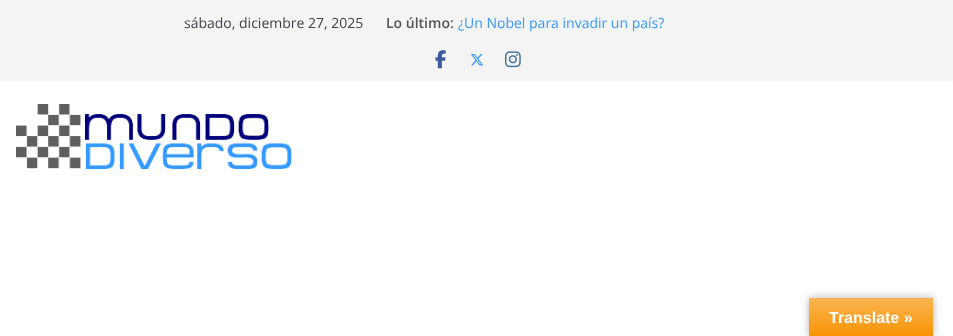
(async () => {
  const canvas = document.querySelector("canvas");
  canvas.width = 953;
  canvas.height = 336;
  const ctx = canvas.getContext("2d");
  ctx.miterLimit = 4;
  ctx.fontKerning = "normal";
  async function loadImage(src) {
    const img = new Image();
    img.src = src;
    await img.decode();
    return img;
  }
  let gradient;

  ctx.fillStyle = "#ffffff";
  ctx.fillRect(0, 0, 953, 336);
  ctx.fillStyle = "rgba(0, 0, 0, 0.1)";
  ctx.filter = "blur(1px)";
  ctx.beginPath();
  ctx.rect(0, 0, 953, 80);
  ctx.fill();
  ctx.filter = "none";
  ctx.fillStyle = "#f4f4f5";
  ctx.fillRect(0, 0, 953, 80);
  ctx.drawImage(await loadImage("img/1.png"), 435, 50, 11, 19);
  ctx.drawImage(await loadImage("img/2.png"), 470, 54, 14, 12);
  ctx.drawImage(await loadImage("img/3.png"), 505, 51, 16, 17);
  ctx.drawImage(await loadImage("img/4.png"), 16, 104, 276, 66);
  ctx.fillStyle = "rgba(0, 0, 0, 0.3)";
  ctx.filter = "blur(4.5px)";
  ctx.beginPath();
  ctx.rect(809, 298, 124, 38);
  ctx.fill();
  ctx.filter = "none";
  gradient = ctx.createLinearGradient(871, 298, 871, 336);
  gradient.addColorStop(0, "#fbb450");
  gradient.addColorStop(1, "#f89406");
  ctx.fillStyle = gradient;
  ctx.fillRect(809, 298, 124, 38);
  ctx.font = "14px Open Sans";
  ctx.fillStyle = "#3f3f46";
  ctx.fillText("sábado, diciembre 27, 2025", 184, 28);
  ctx.font = "600 14px Open Sans";
  ctx.fillStyle = "#555555";
  ctx.fillText("Lo último:", 386, 28);
  ctx.font = "14px Open Sans";
  ctx.fillStyle = "#359aff";
  ctx.fillText("¿Un Nobel para invadir un país?", 458, 28);
  ctx.font = "bold 16px Liberation Sans";
  ctx.fillStyle = "#ffffff";
  ctx.fillText("Translate »", 829, 323);
})();
